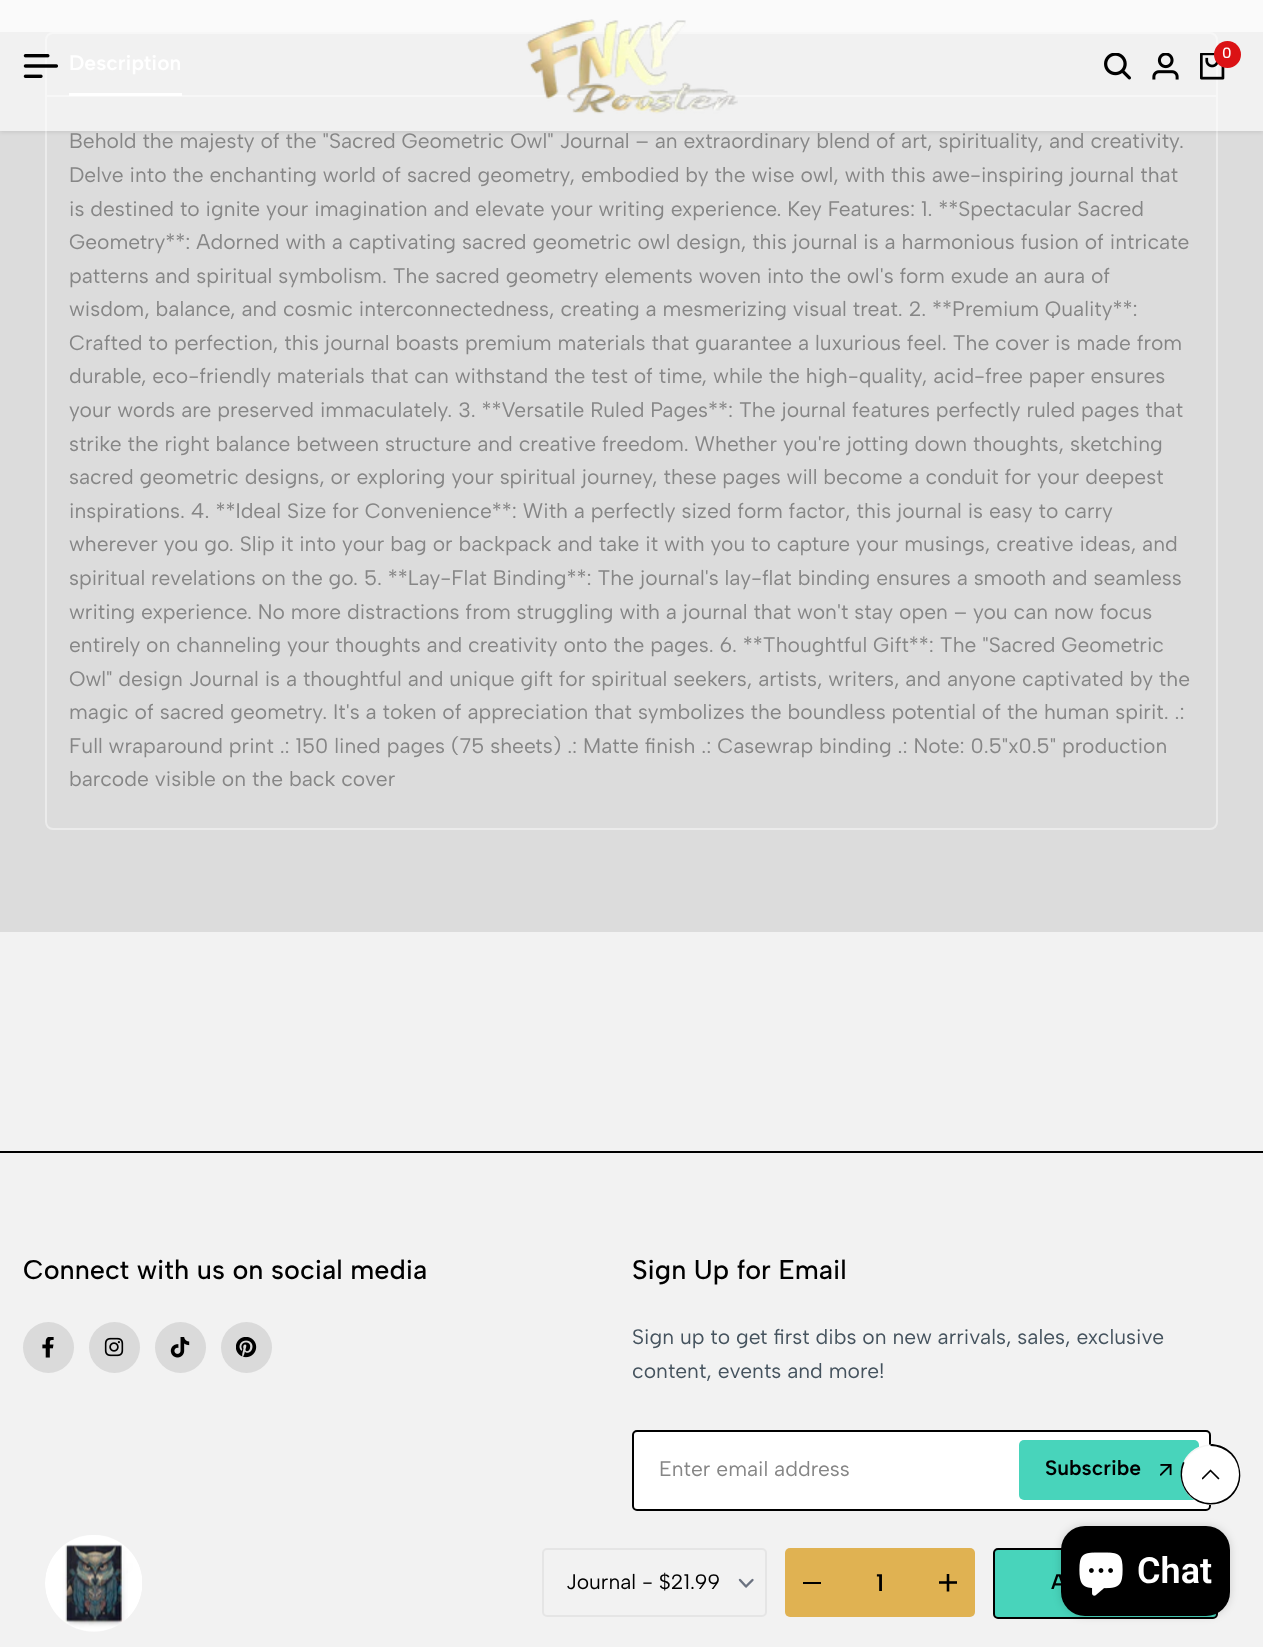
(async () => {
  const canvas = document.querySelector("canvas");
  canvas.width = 1263;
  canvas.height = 1647;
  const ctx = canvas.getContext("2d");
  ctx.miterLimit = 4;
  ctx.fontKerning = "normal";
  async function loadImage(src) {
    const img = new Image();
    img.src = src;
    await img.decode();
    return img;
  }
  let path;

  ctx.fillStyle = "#f2f2f2";
  ctx.fillRect(0, 0, 1263, 1647);
  ctx.fillStyle = "#dcdcdc";
  ctx.fillRect(0, 32, 1263, 900);
  ctx.beginPath();
  ctx.roundRect(46, 33, 1171, 796, 7);
  ctx.strokeStyle = "#ebebeb";
  ctx.lineWidth = 2;
  ctx.stroke();
  ctx.fillStyle = "#ebebeb";
  ctx.fillRect(47, 95, 1170, 2);
  ctx.fillStyle = "#ffffff";
  ctx.fillRect(69, 93, 113, 3);
  ctx.drawImage(await loadImage("img/1.png"), 45, 1535, 97, 97);
  path = new Path2D("M740 1580L746 1586.5L752.5 1580");
  ctx.strokeStyle = "#6b7280";
  ctx.lineWidth = 2.4;
  ctx.lineCap = "round";
  ctx.lineJoin = "round";
  ctx.stroke(path);
  ctx.beginPath();
  ctx.roundRect(543, 1549, 223, 67, 4);
  ctx.strokeStyle = "#e5e5e5";
  ctx.lineWidth = 2;
  ctx.lineJoin = "miter";
  ctx.stroke();
  ctx.fillStyle = "#e0b252";
  ctx.beginPath();
  ctx.roundRect(785, 1548, 190, 69, 5);
  ctx.fill();
  ctx.fillStyle = "#000000";
  ctx.fillRect(803, 1582, 18, 2);
  ctx.drawImage(await loadImage("img/2.png"), 939, 1574, 18, 18);
  ctx.fillStyle = "#48d4bb";
  ctx.beginPath();
  ctx.roundRect(994, 1549, 223, 69, 4);
  ctx.fill();
  ctx.strokeStyle = "#000000";
  ctx.stroke();
  ctx.save();
  path = new Path2D("M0 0H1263V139H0ZM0 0H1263V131H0Z");
  ctx.clip(path, "evenodd");
  ctx.fillStyle = "rgba(0, 0, 0, 0.1)";
  ctx.filter = "blur(2px)";
  ctx.beginPath();
  ctx.rect(0, 2, 1263, 130);
  ctx.fill();
  ctx.filter = "none";
  ctx.restore();
  ctx.fillStyle = "#000000";
  ctx.fillRect(0, 1151, 1263, 2);
  ctx.fillStyle = "#dadada";
  ctx.beginPath();
  ctx.arc(48.5, 1347.5, 25.5, 0, Math.PI * 2);
  ctx.fill();
  ctx.drawImage(await loadImage("img/8.png"), 42, 1337, 12, 21);
  ctx.beginPath();
  ctx.arc(114.5, 1347.5, 25.5, 0, Math.PI * 2);
  ctx.fill();
  ctx.drawImage(await loadImage("img/9.png"), 104, 1337, 20, 20);
  ctx.beginPath();
  ctx.arc(180.5, 1347.5, 25.5, 0, Math.PI * 2);
  ctx.fill();
  ctx.drawImage(await loadImage("img/10.png"), 170, 1337, 20, 21);
  ctx.beginPath();
  ctx.arc(246.5, 1347.5, 25.5, 0, Math.PI * 2);
  ctx.fill();
  ctx.drawImage(await loadImage("img/11.png"), 236, 1337, 21, 21);
  ctx.fillStyle = "#ffffff";
  ctx.beginPath();
  ctx.roundRect(633, 1431, 577, 79, 4);
  ctx.fill();
  ctx.stroke();
  ctx.fillStyle = "#48d4bb";
  ctx.beginPath();
  ctx.roundRect(1019, 1440, 180, 60, 5);
  ctx.fill();
  ctx.drawImage(await loadImage("img/12.png"), 1160, 1464, 12, 12);
  ctx.fillStyle = "#ffffff";
  ctx.beginPath();
  ctx.arc(1211, 1475, 30, 0, Math.PI * 2);
  ctx.fill();
  ctx.fillStyle = "#000000";
  path = new Path2D("M1210 1474V1444C1224 1444 1236 1453 1239 1466C1243 1479 1238 1493 1227 1500C1215 1507 1201 1506 1191 1497C1181 1488 1178 1474 1183 1462Z");
  ctx.fill(path);
  ctx.fillStyle = "#f5f5f5";
  path = new Path2D("M1210.5 1474.5L1183.5 1461.5C1188.5 1451 1199 1444.5 1210.5 1444.5Z");
  ctx.fill(path);
  ctx.fillStyle = "#ffffff";
  ctx.beginPath();
  ctx.arc(1210.5, 1474.5, 28.5, 0, Math.PI * 2);
  ctx.fill();
  ctx.drawImage(await loadImage("img/13.png"), 1202, 1469, 18, 11);
  ctx.fillStyle = "rgba(0, 0, 0, 0.15)";
  ctx.filter = "blur(4px)";
  ctx.beginPath();
  ctx.roundRect(1061, 1526, 169, 90, 24);
  ctx.fill();
  ctx.filter = "none";
  ctx.fillStyle = "#000000";
  ctx.beginPath();
  ctx.roundRect(1061, 1526, 169, 90, 24);
  ctx.fill();
  ctx.drawImage(await loadImage("img/14.png"), 1079, 1552, 44, 44);
  ctx.font = "600 21px Albert Sans";
  ctx.fillStyle = "#ffffff";
  ctx.fillText("Description", 69, 70);
  ctx.font = "21px Albert Sans";
  ctx.fillStyle = "#868686";
  for (const [text, x, y] of [
    ["Behold the majesty of the \"Sacred Geometric Owl\" Journal – an extraordinary blend of art, spirituality, and creativity.", 69, 148],
    ["Delve into the enchanting world of sacred geometry, embodied by the wise owl, with this awe-inspiring journal that", 69, 182],
    ["is destined to ignite your imagination and elevate your writing experience. Key Features: 1. **Spectacular Sacred", 69, 216],
    ["Geometry**: Adorned with a captivating sacred geometric owl design, this journal is a harmonious fusion of intricate", 69, 249],
    ["patterns and spiritual symbolism. The sacred geometry elements woven into the owl's form exude an aura of", 69, 283],
    ["wisdom, balance, and cosmic interconnectedness, creating a mesmerizing visual treat. 2. **Premium Quality**:", 69, 316],
    ["Crafted to perfection, this journal boasts premium materials that guarantee a luxurious feel. The cover is made from", 69, 350],
    ["durable, eco-friendly materials that can withstand the test of time, while the high-quality, acid-free paper ensures", 69, 383],
    ["your words are preserved immaculately. 3. **Versatile Ruled Pages**: The journal features perfectly ruled pages that", 69, 417],
    ["strike the right balance between structure and creative freedom. Whether you're jotting down thoughts, sketching", 69, 451],
    ["sacred geometric designs, or exploring your spiritual journey, these pages will become a conduit for your deepest", 69, 484],
    ["inspirations. 4. **Ideal Size for Convenience**: With a perfectly sized form factor, this journal is easy to carry", 69, 518],
    ["wherever you go. Slip it into your bag or backpack and take it with you to capture your musings, creative ideas, and", 69, 551],
    ["spiritual revelations on the go. 5. **Lay-Flat Binding**: The journal's lay-flat binding ensures a smooth and seamless", 69, 585],
    ["writing experience. No more distractions from struggling with a journal that won't stay open – you can now focus", 69, 619],
    ["entirely on channeling your thoughts and creativity onto the pages. 6. **Thoughtful Gift**: The \"Sacred Geometric", 69, 652],
    ["Owl\" design Journal is a thoughtful and unique gift for spiritual seekers, artists, writers, and anyone captivated by the", 69, 686],
    ["magic of sacred geometry. It's a token of appreciation that symbolizes the boundless potential of the human spirit. .:", 69, 719],
    ["Full wraparound print .: 150 lined pages (75 sheets) .: Matte finish .: Casewrap binding .: Note: 0.5\"x0.5\" production", 69, 753],
    ["barcode visible on the back cover", 69, 786],
  ]) {
    ctx.fillText(text, x, y);
  }
  ctx.fillStyle = "#000000";
  ctx.fillText("Journal - $21.99", 566, 1589);
  ctx.font = "600 24px Albert Sans";
  ctx.fillText("1", 876, 1591);
  ctx.font = "600 21px Albert Sans";
  ctx.fillText("A", 1051, 1589);
  ctx.fillStyle = "rgba(255, 255, 255, 0.6)";
  ctx.fillRect(0, 0, 1263, 131);
  ctx.drawImage(await loadImage("img/3.png"), 23, 54, 35, 24);
  ctx.drawImage(await loadImage("img/4.png"), 526, 19, 212, 95);
  ctx.drawImage(await loadImage("img/5.png"), 1104, 53, 27, 27);
  ctx.drawImage(await loadImage("img/6.png"), 1152, 53, 27, 27);
  ctx.drawImage(await loadImage("img/7.png"), 1200, 53, 25, 27);
  ctx.fillStyle = "#db1215";
  ctx.beginPath();
  ctx.arc(1227.5, 54.5, 13.5, 0, Math.PI * 2);
  ctx.fill();
  ctx.font = "500 15px Albert Sans";
  ctx.fillStyle = "#ffffff";
  ctx.fillText("0", 1222, 58);
  ctx.font = "500 27px Albert Sans";
  ctx.fillStyle = "#000000";
  ctx.fillText("Connect with us on social media", 23, 1279);
  ctx.fillText("Sign Up for Email", 632, 1279);
  ctx.font = "21px Albert Sans";
  ctx.fillStyle = "#45535e";
  ctx.fillText("Sign up to get first dibs on new arrivals, sales, exclusive", 632, 1344);
  ctx.fillText("content, events and more!", 632, 1378);
  ctx.fillStyle = "#868686";
  ctx.fillText("Enter email address", 659, 1476);
  ctx.font = "600 21px Albert Sans";
  ctx.fillStyle = "#000000";
  ctx.fillText("Subscribe", 1045, 1475);
  ctx.font = "600 36px Roboto";
  ctx.fillStyle = "#ffffff";
  ctx.fillText("Chat", 1137, 1583);
})();
